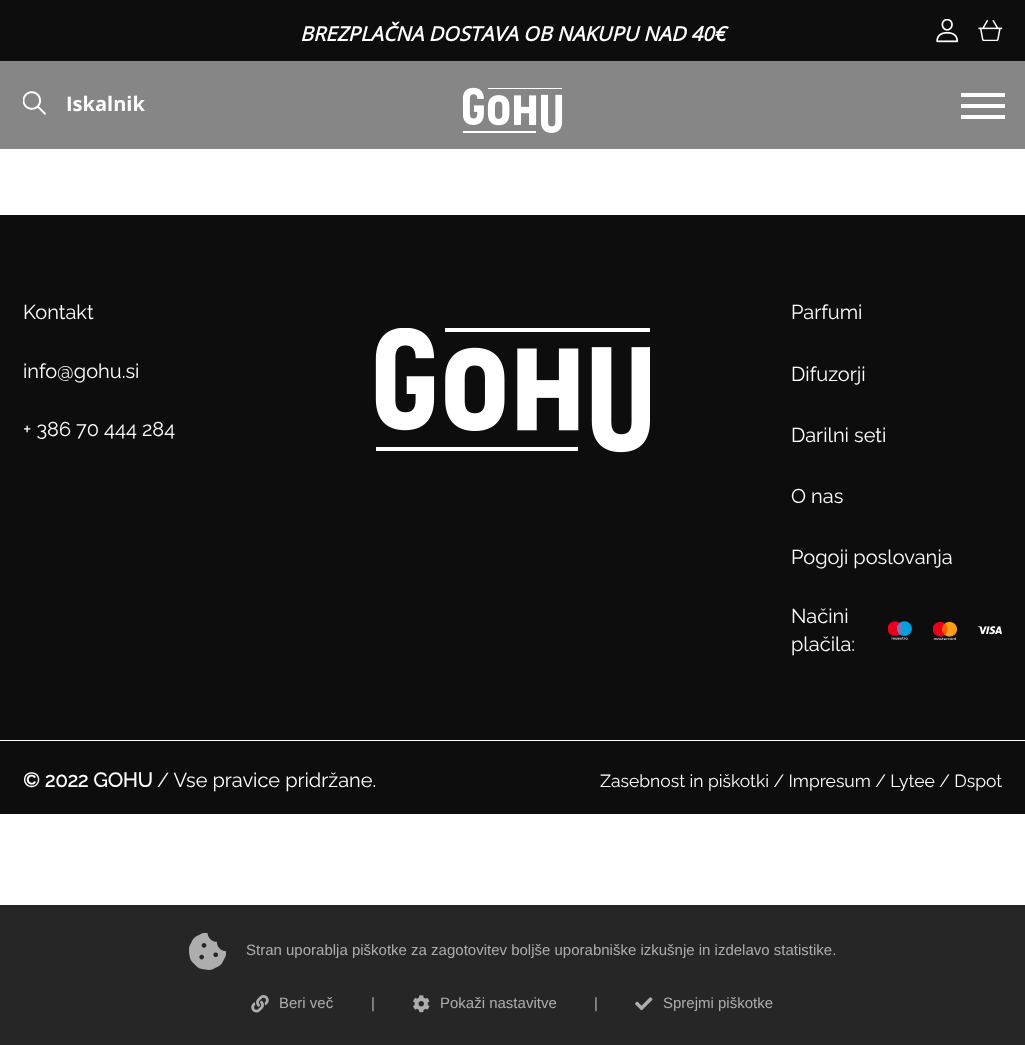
(async () => {
  const canvas = document.querySelector("canvas");
  canvas.width = 1025;
  canvas.height = 1045;
  const ctx = canvas.getContext("2d");
  ctx.miterLimit = 4;
  ctx.fontKerning = "normal";
  async function loadImage(src) {
    const img = new Image();
    img.src = src;
    await img.decode();
    return img;
  }

  ctx.fillStyle = "#ffffff";
  ctx.fillRect(0, 0, 1025, 1045);
  ctx.fillStyle = "#0d0d0d";
  ctx.fillRect(0, 0, 1025, 61);
  ctx.drawImage(await loadImage("img/1.png"), 936, 19, 23, 24);
  ctx.drawImage(await loadImage("img/2.png"), 978, 20, 25, 21);
  ctx.fillStyle = "#868686";
  ctx.fillRect(0, 61, 1025, 88);
  ctx.drawImage(await loadImage("img/3.png"), 23, 91, 23, 24);
  ctx.drawImage(await loadImage("img/4.png"), 463, 87, 100, 46);
  for (const [x, y, w, h, color] of [
    [961, 104, 44, 4, "#ffffff"],
    [961, 93, 44, 4, "#ffffff"],
    [961, 115, 44, 4, "#ffffff"],
    [0, 215, 1025, 599, "#0d0d0d"],
  ]) {
    ctx.fillStyle = color;
    ctx.fillRect(x, y, w, h);
  }
  ctx.drawImage(await loadImage("img/5.png"), 375, 328, 275, 125);
  ctx.drawImage(await loadImage("img/6.png"), 888, 621, 24, 19);
  ctx.drawImage(await loadImage("img/7.png"), 933, 621, 24, 19);
  ctx.drawImage(await loadImage("img/8.png"), 978, 626, 24, 9);
  ctx.fillStyle = "#ffffff";
  ctx.fillRect(0, 740, 1025, 1);
  ctx.fillStyle = "#262626";
  ctx.fillRect(0, 905, 1025, 140);
  ctx.drawImage(await loadImage("img/9.png"), 189, 933, 37, 37);
  ctx.drawImage(await loadImage("img/10.png"), 251, 995, 18, 18);
  ctx.drawImage(await loadImage("img/11.png"), 413, 995, 17, 18);
  ctx.drawImage(await loadImage("img/12.png"), 635, 997, 18, 14);
  ctx.font = "italic bold 20px Open Sans";
  ctx.fillStyle = "#ffffff";
  ctx.fillText("BREZPLAČNA DOSTAVA OB NAKUPU NAD 40€", 300, 41);
  ctx.font = "bold 20px Open Sans";
  ctx.fillText("Iskalnik", 66, 111);
  ctx.font = "20px Raleway";
  for (const [text, x, y] of [
    ["Kontakt", 23, 319],
    ["info@gohu.si", 23, 378],
    ["+ 386 70 444 284", 23, 436],
    ["Parfumi", 791, 319],
    ["Difuzorji", 791, 381],
    ["Darilni seti", 791, 442],
    ["O nas", 791, 503],
    ["Pogoji poslovanja", 791, 564],
    ["Načini", 791, 623],
    ["plačila:", 791, 651],
  ]) {
    ctx.fillText(text, x, y);
  }
  ctx.font = "bold 20px Raleway";
  ctx.fillText("© 2022 GOHU", 23, 787);
  ctx.font = "20px Raleway";
  ctx.fillText("/ Vse pravice pridržane.", 157, 787);
  ctx.font = "17.5px Raleway";
  ctx.fillText("Zasebnost in piškotki / Impresum / Lytee / Dspot", 600, 787);
  ctx.font = "15px Liberation Sans";
  ctx.fillStyle = "#adadad";
  for (const [text, x, y] of [
    ["Stran uporablja piškotke za zagotovitev boljše uporabniške izkušnje in izdelavo statistike.", 246, 955],
    ["Beri več", 279, 1008],
    ["|", 371, 1008],
    ["Pokaži nastavitve", 440, 1008],
    ["|", 594, 1008],
    ["Sprejmi piškotke", 663, 1008],
  ]) {
    ctx.fillText(text, x, y);
  }
})();
